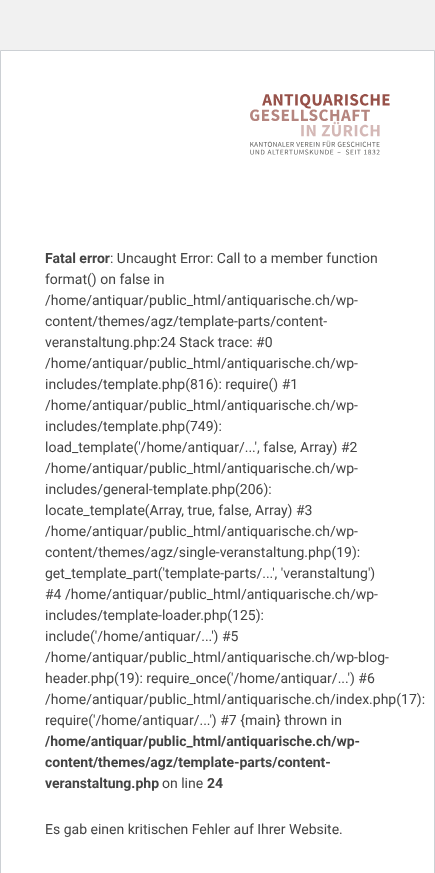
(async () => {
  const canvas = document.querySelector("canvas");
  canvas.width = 435;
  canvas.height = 873;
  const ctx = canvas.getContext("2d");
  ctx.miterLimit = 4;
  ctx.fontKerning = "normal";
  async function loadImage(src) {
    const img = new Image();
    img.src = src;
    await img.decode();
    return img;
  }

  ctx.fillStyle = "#f1f1f1";
  ctx.fillRect(0, 0, 435, 873);
  ctx.fillStyle = "#ffffff";
  ctx.beginPath();
  ctx.rect(0.5, 50.5, 434, 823);
  ctx.fill();
  ctx.strokeStyle = "#ccd0d4";
  ctx.stroke();
  ctx.drawImage(await loadImage("img/1.png"), 250, 94, 140, 61);
  ctx.font = "bold 14px Roboto";
  ctx.fillStyle = "#444444";
  ctx.fillText("Fatal error", 45, 263);
  ctx.font = "14px Roboto";
  for (const [text, x, y] of [
    [": Uncaught Error: Call to a member function", 110, 263],
    ["format() on false in", 45, 284],
    ["/home/antiquar/public_html/antiquarische.ch/wp-", 45, 305],
    ["content/themes/agz/template-parts/content-", 45, 326],
    ["veranstaltung.php:24 Stack trace: #0", 45, 347],
    ["/home/antiquar/public_html/antiquarische.ch/wp-", 45, 368],
    ["includes/template.php(816): require() #1", 45, 389],
    ["/home/antiquar/public_html/antiquarische.ch/wp-", 45, 410],
    ["includes/template.php(749):", 45, 431],
    ["load_template('/home/antiquar/...', false, Array) #2", 45, 452],
    ["/home/antiquar/public_html/antiquarische.ch/wp-", 45, 473],
    ["includes/general-template.php(206):", 45, 494],
    ["locate_template(Array, true, false, Array) #3", 45, 515],
    ["/home/antiquar/public_html/antiquarische.ch/wp-", 45, 536],
    ["content/themes/agz/single-veranstaltung.php(19):", 45, 557],
    ["get_template_part('template-parts/...', 'veranstaltung')", 45, 578],
    ["#4 /home/antiquar/public_html/antiquarische.ch/wp-", 45, 599],
    ["includes/template-loader.php(125):", 45, 620],
    ["include('/home/antiquar/...') #5", 45, 641],
    ["/home/antiquar/public_html/antiquarische.ch/wp-blog-", 45, 662],
    ["header.php(19): require_once('/home/antiquar/...') #6", 45, 683],
    ["/home/antiquar/public_html/antiquarische.ch/index.php(17):", 45, 704],
    ["require('/home/antiquar/...') #7 {main} thrown in", 45, 725],
  ]) {
    ctx.fillText(text, x, y);
  }
  ctx.font = "bold 14px Roboto";
  for (const [text, x, y] of [
    ["/home/antiquar/public_html/antiquarische.ch/wp-", 45, 746],
    ["content/themes/agz/template-parts/content-", 45, 767],
    ["veranstaltung.php", 45, 788],
  ]) {
    ctx.fillText(text, x, y);
  }
  ctx.font = "14px Roboto";
  ctx.fillText("on line", 162, 788);
  ctx.font = "bold 14px Roboto";
  ctx.fillText("24", 207, 788);
  ctx.font = "14px Roboto";
  ctx.fillText("Es gab einen kritischen Fehler auf Ihrer Website.", 45, 834);
})();
